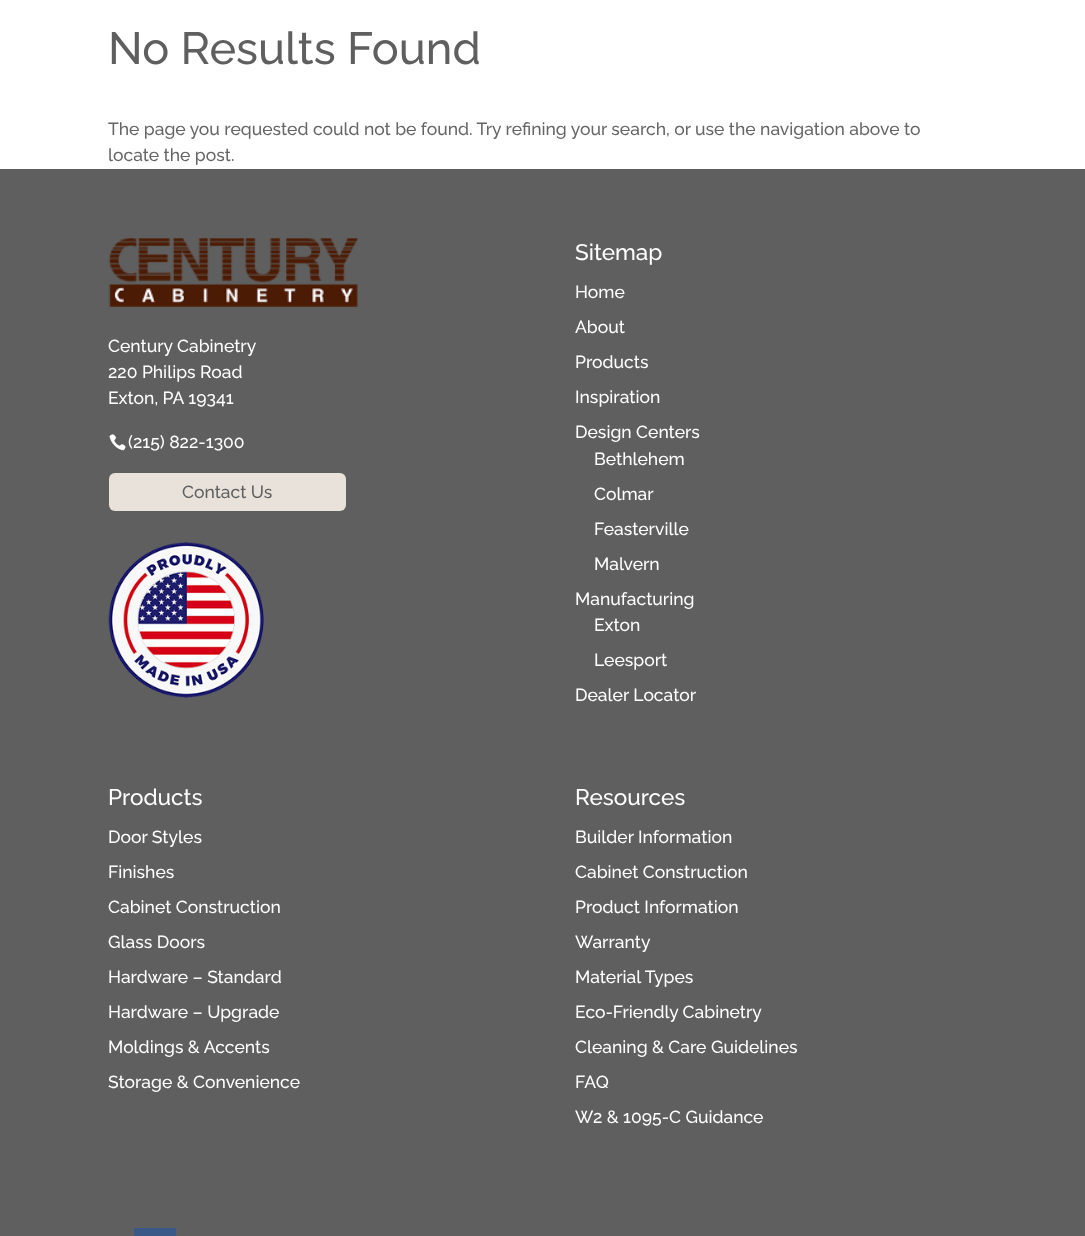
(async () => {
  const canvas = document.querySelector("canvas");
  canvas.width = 1085;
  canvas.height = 1236;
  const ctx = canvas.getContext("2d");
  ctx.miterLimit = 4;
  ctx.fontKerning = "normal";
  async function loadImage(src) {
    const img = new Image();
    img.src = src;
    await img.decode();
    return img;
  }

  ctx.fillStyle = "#ffffff";
  ctx.fillRect(0, 0, 1085, 1236);
  ctx.fillStyle = "#5f5f5f";
  ctx.fillRect(0, 169, 1085, 1067);
  ctx.drawImage(await loadImage("img/1.png"), 108, 238, 250, 69);
  ctx.drawImage(await loadImage("img/2.png"), 109, 434, 17, 17);
  ctx.fillStyle = "#e8e2da";
  ctx.beginPath();
  ctx.roundRect(109, 473, 237, 38, 6);
  ctx.fill();
  ctx.drawImage(await loadImage("img/3.png"), 108, 542, 156, 156);
  ctx.fillStyle = "#3b5987";
  ctx.fillRect(134, 1228, 42, 8);
  ctx.font = "100 45px Raleway";
  ctx.fillStyle = "#5f5f5f";
  ctx.fillText("No Results Found", 108, 64);
  ctx.font = "100 17.5px Raleway";
  ctx.fillStyle = "#666666";
  ctx.fillText("The page you requested could not be found. Try refining your search, or use the navigation above to", 108, 135);
  ctx.fillText("locate the post.", 108, 161);
  ctx.fillStyle = "#ffffff";
  for (const [text, x, y] of [
    ["Century Cabinetry", 108, 352],
    ["220 Philips Road", 108, 378],
    ["Exton, PA 19341", 108, 404],
    ["(215) 822-1300", 128, 448],
  ]) {
    ctx.fillText(text, x, y);
  }
  ctx.fillStyle = "#5f5f5f";
  ctx.fillText("Contact Us", 182, 498);
  ctx.font = "100 22.5px Raleway";
  ctx.fillStyle = "#ffffff";
  ctx.fillText("Sitemap", 575, 260);
  ctx.font = "100 17.5px Raleway";
  for (const [text, x, y] of [
    ["Home", 575, 298],
    ["About", 575, 333],
    ["Products", 575, 368],
    ["Inspiration", 575, 403],
    ["Design Centers", 575, 438],
    ["Bethlehem", 594, 465],
    ["Colmar", 594, 500],
    ["Feasterville", 594, 535],
    ["Malvern", 594, 570],
    ["Manufacturing", 575, 605],
    ["Exton", 594, 631],
    ["Leesport", 594, 666],
    ["Dealer Locator", 575, 701],
  ]) {
    ctx.fillText(text, x, y);
  }
  ctx.font = "100 22.5px Raleway";
  ctx.fillText("Products", 108, 805);
  ctx.font = "100 17.5px Raleway";
  for (const [text, x, y] of [
    ["Door Styles", 108, 843],
    ["Finishes", 108, 878],
    ["Cabinet Construction", 108, 913],
    ["Glass Doors", 108, 948],
    ["Hardware – Standard", 108, 983],
    ["Hardware – Upgrade", 108, 1018],
    ["Moldings & Accents", 108, 1053],
    ["Storage & Convenience", 108, 1088],
  ]) {
    ctx.fillText(text, x, y);
  }
  ctx.font = "100 22.5px Raleway";
  ctx.fillText("Resources", 575, 805);
  ctx.font = "100 17.5px Raleway";
  for (const [text, x, y] of [
    ["Builder Information", 575, 843],
    ["Cabinet Construction", 575, 878],
    ["Product Information", 575, 913],
    ["Warranty", 575, 948],
    ["Material Types", 575, 983],
    ["Eco-Friendly Cabinetry", 575, 1018],
    ["Cleaning & Care Guidelines", 575, 1053],
    ["FAQ", 575, 1088],
    ["W2 & 1095-C Guidance", 575, 1123],
  ]) {
    ctx.fillText(text, x, y);
  }
})();
